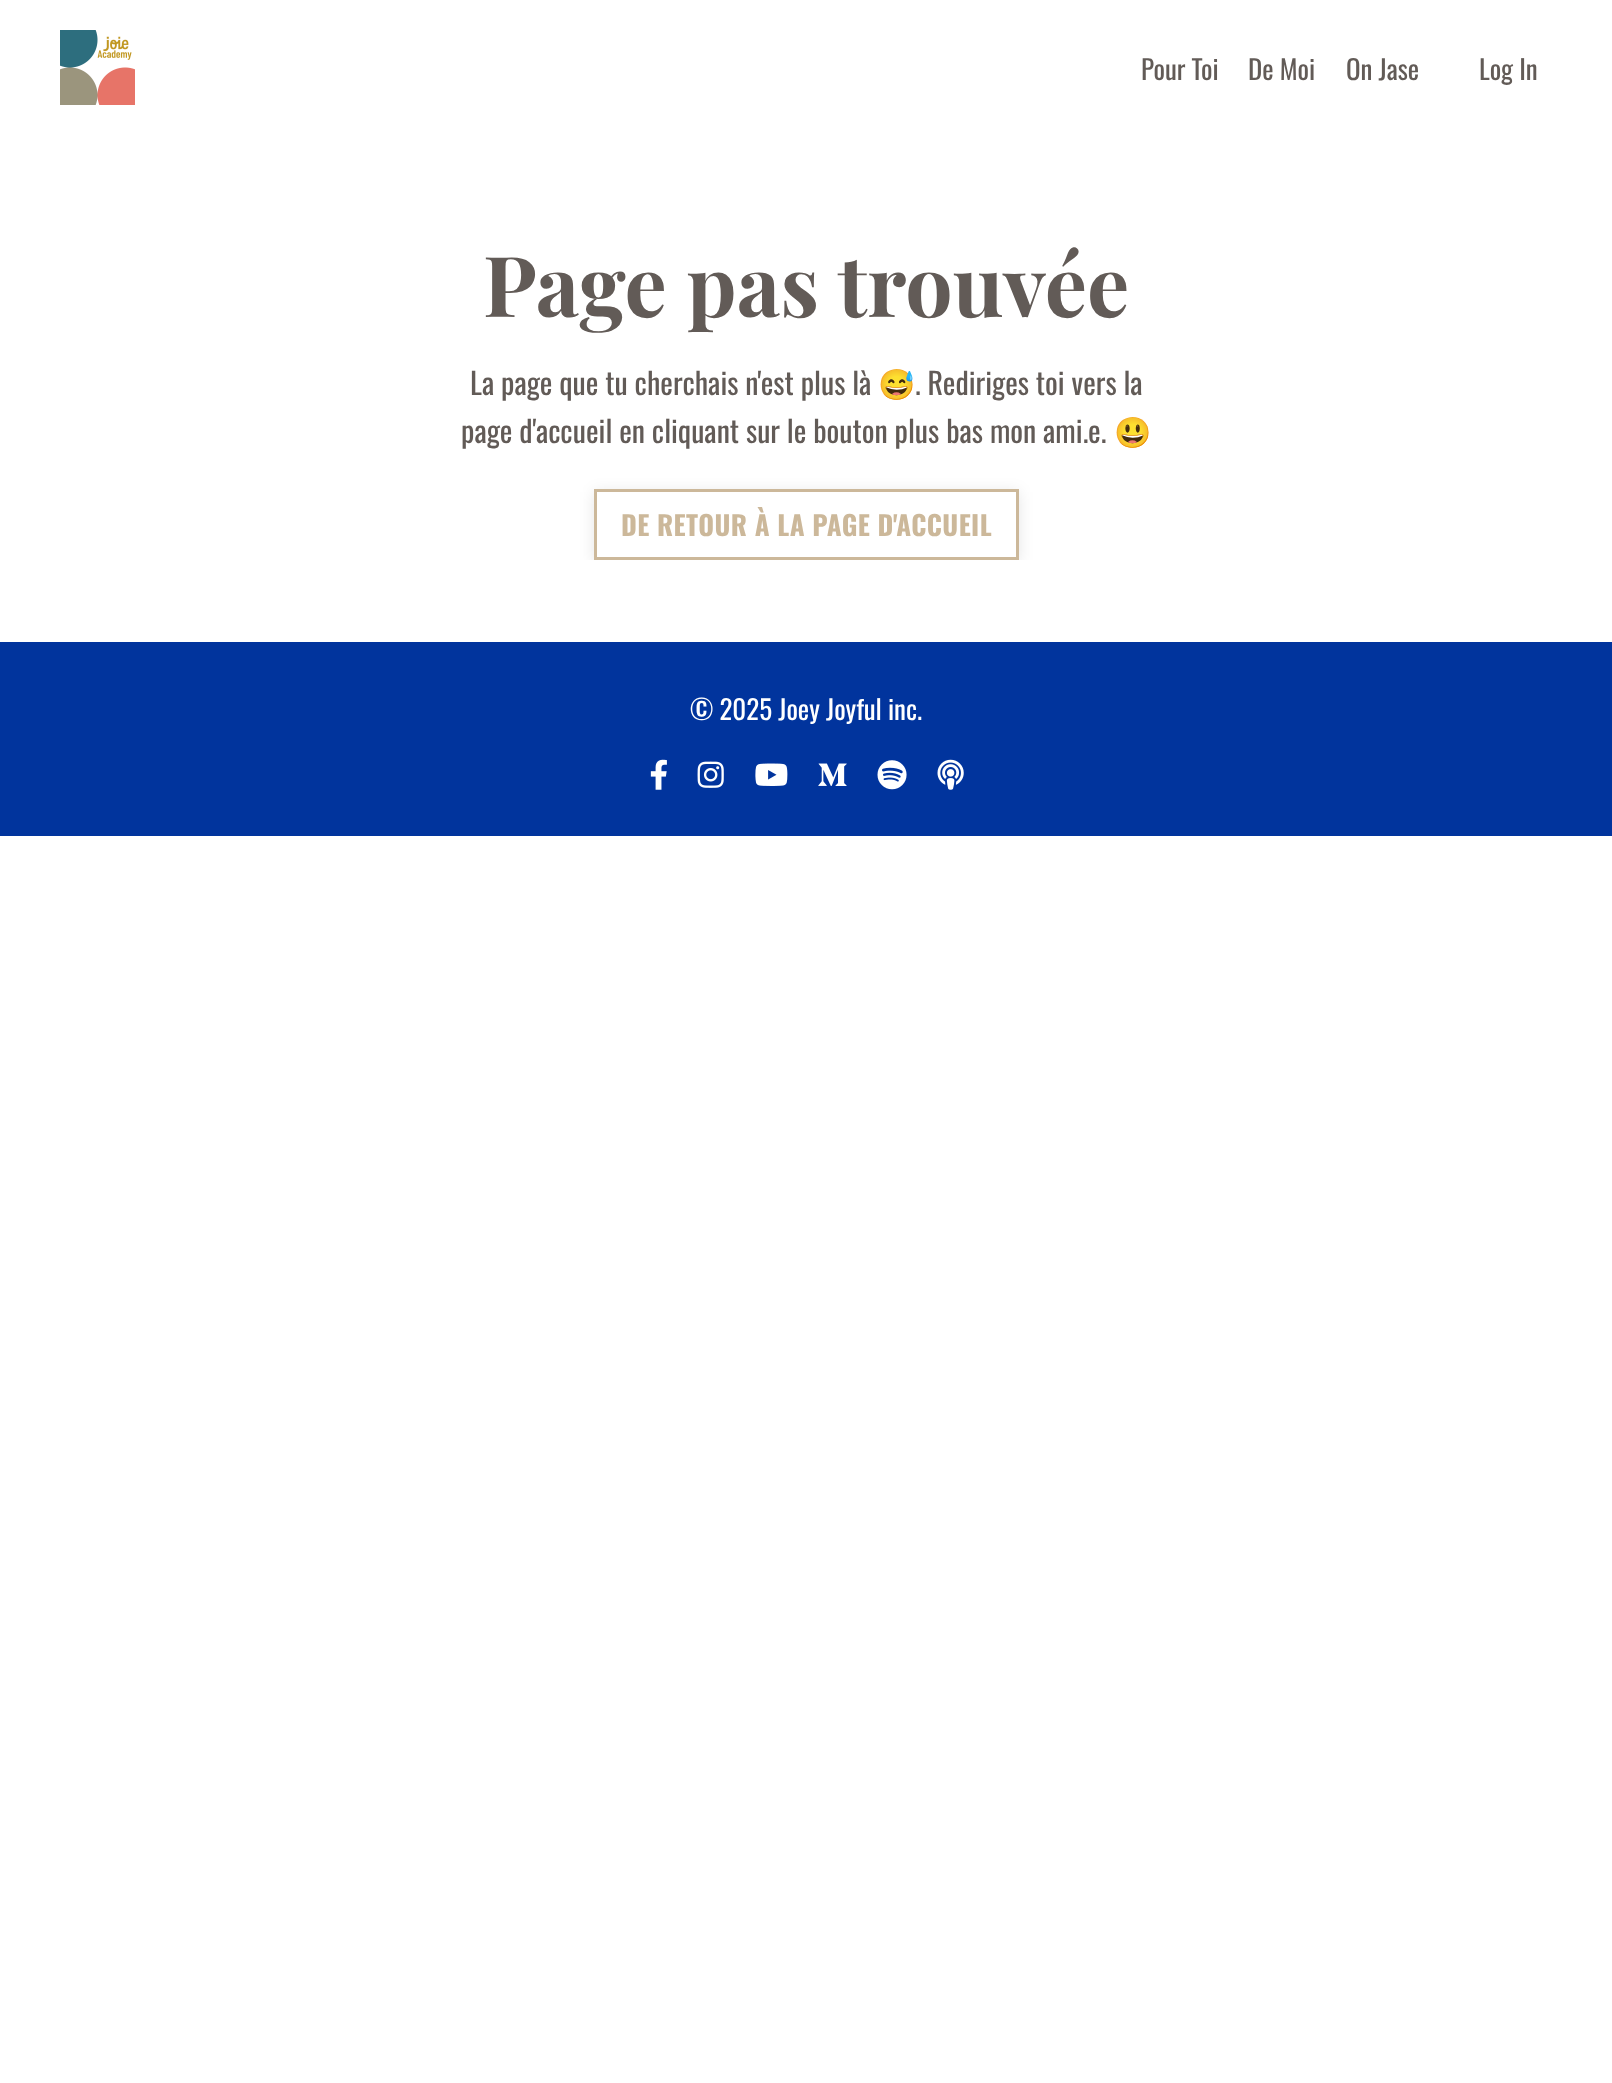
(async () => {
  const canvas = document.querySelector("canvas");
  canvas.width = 1612;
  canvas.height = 2083;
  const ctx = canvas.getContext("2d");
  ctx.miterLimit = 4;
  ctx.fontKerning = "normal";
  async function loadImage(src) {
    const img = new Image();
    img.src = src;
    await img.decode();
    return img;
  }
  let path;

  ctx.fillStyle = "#ffffff";
  ctx.fillRect(0, 0, 1612, 2083);
  ctx.drawImage(await loadImage("img/1.png"), 60, 30, 75, 75);
  ctx.save();
  ctx.beginPath();
  ctx.roundRect(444, 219, 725, 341, 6);
  ctx.clip();
  path = new Path2D("M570 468H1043V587H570ZM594 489H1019V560H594Z");
  ctx.clip(path, "evenodd");
  ctx.fillStyle = "rgba(0, 0, 0, 0.1)";
  ctx.filter = "blur(7.5px)";
  ctx.beginPath();
  ctx.rect(594, 492, 425, 71);
  ctx.fill();
  ctx.filter = "none";
  ctx.restore();
  ctx.strokeStyle = "#ccb89a";
  ctx.lineWidth = 3;
  ctx.strokeRect(595.5, 490.5, 422, 68);
  ctx.fillStyle = "#01349d";
  ctx.fillRect(0, 642, 1612, 194);
  ctx.drawImage(await loadImage("img/2.png"), 650, 759, 17, 31);
  ctx.drawImage(await loadImage("img/3.png"), 697, 761, 27, 27);
  ctx.drawImage(await loadImage("img/4.png"), 755, 763, 33, 23);
  ctx.drawImage(await loadImage("img/5.png"), 818, 763, 29, 23);
  ctx.drawImage(await loadImage("img/6.png"), 877, 760, 30, 30);
  ctx.drawImage(await loadImage("img/7.png"), 937, 759, 27, 31);
  ctx.font = "27px Oswald";
  ctx.fillStyle = "#625b57";
  for (const [text, x, y] of [
    ["Pour Toi", 1141, 80],
    ["De Moi", 1248, 80],
    ["On Jase", 1346, 80],
    ["Log In", 1479, 80],
  ]) {
    ctx.fillText(text, x, y);
  }
  ctx.font = "bold 84px Playfair Display";
  ctx.fillText("Page pas trouvée", 483, 317);
  ctx.font = "30px Oswald";
  ctx.fillText("La page que tu cherchais n'est plus là", 470, 395);
  ctx.font = "30px Noto Color Emoji";
  ctx.fillText("😅", 878, 395);
  ctx.font = "30px Oswald";
  ctx.fillText(". Rediriges toi vers la", 915, 395);
  ctx.fillText("page d'accueil en cliquant sur le bouton plus bas mon ami.e.", 461, 443);
  ctx.font = "30px Noto Color Emoji";
  ctx.fillText("😃", 1114, 443);
  ctx.letterSpacing = "0.4px";
  ctx.font = "bold 27px Oswald";
  ctx.fillStyle = "#ccb89a";
  ctx.fillText("DE RETOUR À LA PAGE D'ACCUEIL", 621, 536);
  ctx.letterSpacing = "0px";
  ctx.font = "27px Oswald";
  ctx.fillStyle = "#ffffff";
  ctx.fillText("© 2025 Joey Joyful inc.", 690, 720);
})();
